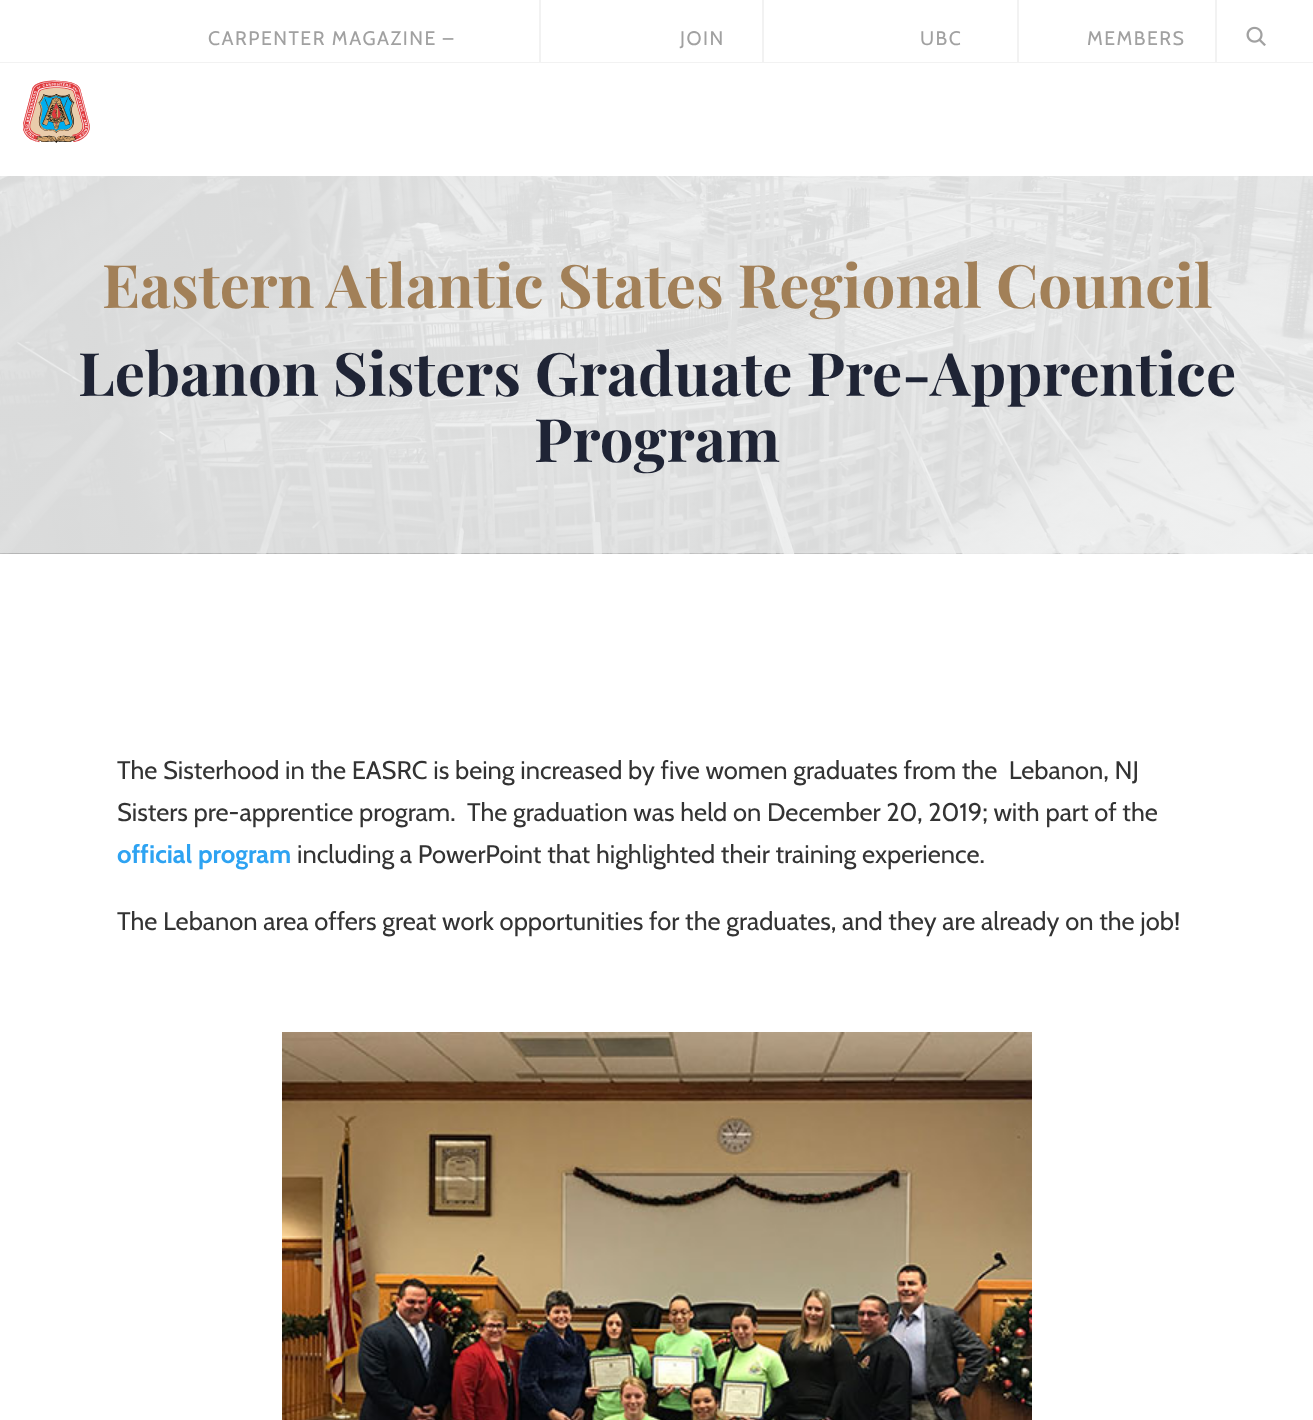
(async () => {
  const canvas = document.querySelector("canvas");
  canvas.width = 1313;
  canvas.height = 1420;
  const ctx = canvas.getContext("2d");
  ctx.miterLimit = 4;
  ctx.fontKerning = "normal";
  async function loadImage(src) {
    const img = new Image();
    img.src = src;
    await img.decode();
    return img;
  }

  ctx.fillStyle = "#ffffff";
  ctx.fillRect(0, 0, 1313, 1420);
  for (const [x, y, w, h, color] of [
    [0, 62, 1313, 1, "#f2f2f2"],
    [539, 0, 2, 62, "#f2f2f2"],
    [762, 0, 2, 62, "#f2f2f2"],
    [1017, 0, 2, 62, "#f2f2f2"],
    [1215, 0, 2, 62, "#f2f2f2"],
  ]) {
    ctx.fillStyle = color;
    ctx.fillRect(x, y, w, h);
  }
  ctx.drawImage(await loadImage("img/1.png"), 1246, 26, 20, 20);
  ctx.drawImage(await loadImage("img/2.png"), 23, 80, 67, 63);
  ctx.drawImage(await loadImage("img/3.png"), 0, 176, 1313, 378);
  ctx.drawImage(await loadImage("img/4.png"), 282, 1032, 750, 388);
  ctx.letterSpacing = "1.5px";
  ctx.font = "19.5px Cabin";
  ctx.fillStyle = "#a1a1a1";
  for (const [text, x, y] of [
    ["CARPENTER MAGAZINE –", 208, 45],
    ["JOIN", 680, 45],
    ["UBC", 920, 45],
    ["MEMBERS", 1087, 45],
  ]) {
    ctx.fillText(text, x, y);
  }
  ctx.letterSpacing = "0px";
  ctx.font = "bold 60px Playfair Display";
  ctx.fillStyle = "#a28058";
  ctx.fillText("Eastern Atlantic States Regional Council", 102, 308);
  ctx.fillStyle = "#1f2435";
  ctx.fillText("Lebanon Sisters Graduate Pre-Apprentice", 78, 396);
  ctx.fillText("Program", 534, 462);
  ctx.font = "25.5px Cabin";
  ctx.fillStyle = "#333333";
  ctx.fillText("The Sisterhood in the EASRC is being increased by five women graduates from the  Lebanon, NJ", 117, 779);
  ctx.fillText("Sisters pre-apprentice program.  The graduation was held on December 20, 2019; with part of the", 117, 821);
  ctx.font = "bold 25.5px Cabin";
  ctx.fillStyle = "#2ea3f2";
  ctx.fillText("official program", 117, 863);
  ctx.font = "25.5px Cabin";
  ctx.fillStyle = "#333333";
  ctx.fillText("including a PowerPoint that highlighted their training experience.", 297, 863);
  ctx.fillText("The Lebanon area offers great work opportunities for the graduates, and they are already on the job!", 117, 930);
})();
